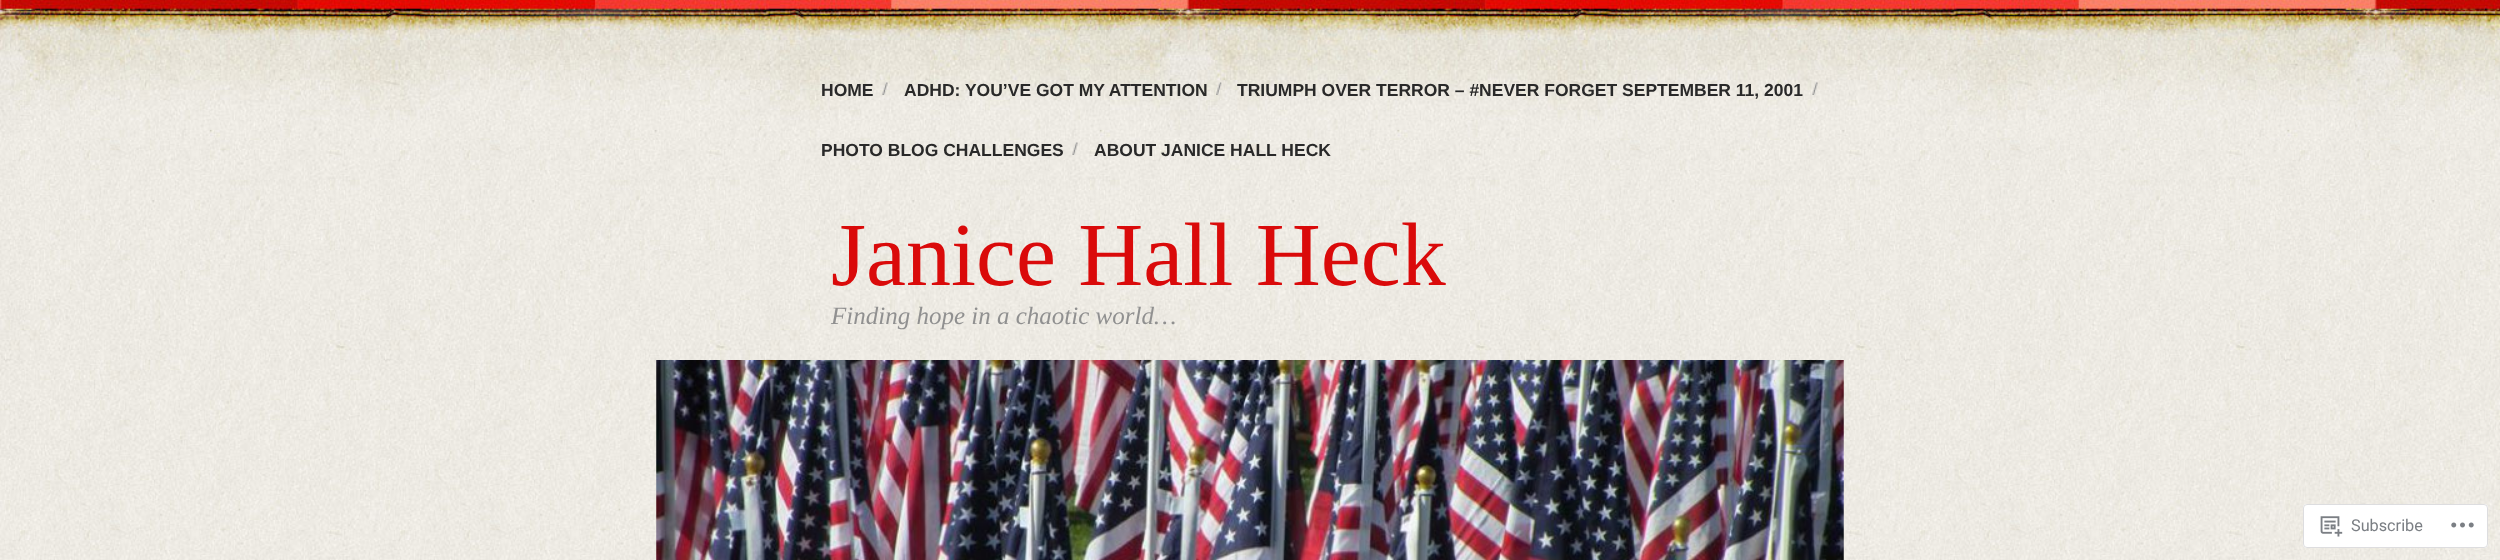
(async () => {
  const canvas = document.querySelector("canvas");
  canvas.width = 2500;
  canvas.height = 560;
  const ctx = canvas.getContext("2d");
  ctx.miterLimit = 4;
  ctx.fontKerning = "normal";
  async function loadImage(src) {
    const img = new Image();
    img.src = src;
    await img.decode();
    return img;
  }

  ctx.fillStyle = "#ffffff";
  ctx.fillRect(0, 0, 2500, 560);
  ctx.drawImage(await loadImage("img/1.png"), 0, 137, 2500, 423);
  ctx.drawImage(await loadImage("img/2.png"), 0, 0, 2500, 138);
  ctx.drawImage(await loadImage("img/3.png"), 882, 82, 6, 13);
  ctx.drawImage(await loadImage("img/4.png"), 1216, 82, 6, 13);
  ctx.drawImage(await loadImage("img/5.png"), 1812, 82, 6, 13);
  ctx.drawImage(await loadImage("img/6.png"), 1072, 142, 6, 13);
  ctx.drawImage(await loadImage("img/7.png"), 656, 360, 1188, 200);
  ctx.fillStyle = "rgba(255, 255, 255, 0.98)";
  ctx.beginPath();
  ctx.roundRect(2303, 504, 185, 44, 4);
  ctx.fill();
  ctx.beginPath();
  ctx.roundRect(2303.5, 504.5, 184, 43, 3.5);
  ctx.strokeStyle = "rgba(220, 220, 222, 0.98)";
  ctx.stroke();
  ctx.drawImage(await loadImage("img/8.png"), 2320, 516, 23, 21);
  ctx.drawImage(await loadImage("img/9.png"), 2451, 522, 23, 6);
  ctx.font = "bold 17.5px Liberation Sans";
  ctx.fillStyle = "#292929";
  for (const [text, x, y] of [
    ["HOME", 821, 96],
    ["ADHD: YOU’VE GOT MY ATTENTION", 904, 96],
    ["TRIUMPH OVER TERROR – #NEVER FORGET SEPTEMBER 11, 2001", 1237, 96],
    ["PHOTO BLOG CHALLENGES", 821, 156],
    ["ABOUT JANICE HALL HECK", 1094, 156],
  ]) {
    ctx.fillText(text, x, y);
  }
  ctx.font = "90px Liberation Serif";
  ctx.fillStyle = "#da0a0a";
  ctx.fillText("Janice Hall Heck", 831, 285);
  ctx.font = "italic 25px Liberation Serif";
  ctx.fillStyle = "#909090";
  ctx.fillText("Finding hope in a chaotic world…", 831, 324);
  ctx.font = "16.25px Roboto";
  ctx.fillStyle = "#7b7f84";
  ctx.fillText("Subscribe", 2351, 531);
})();
